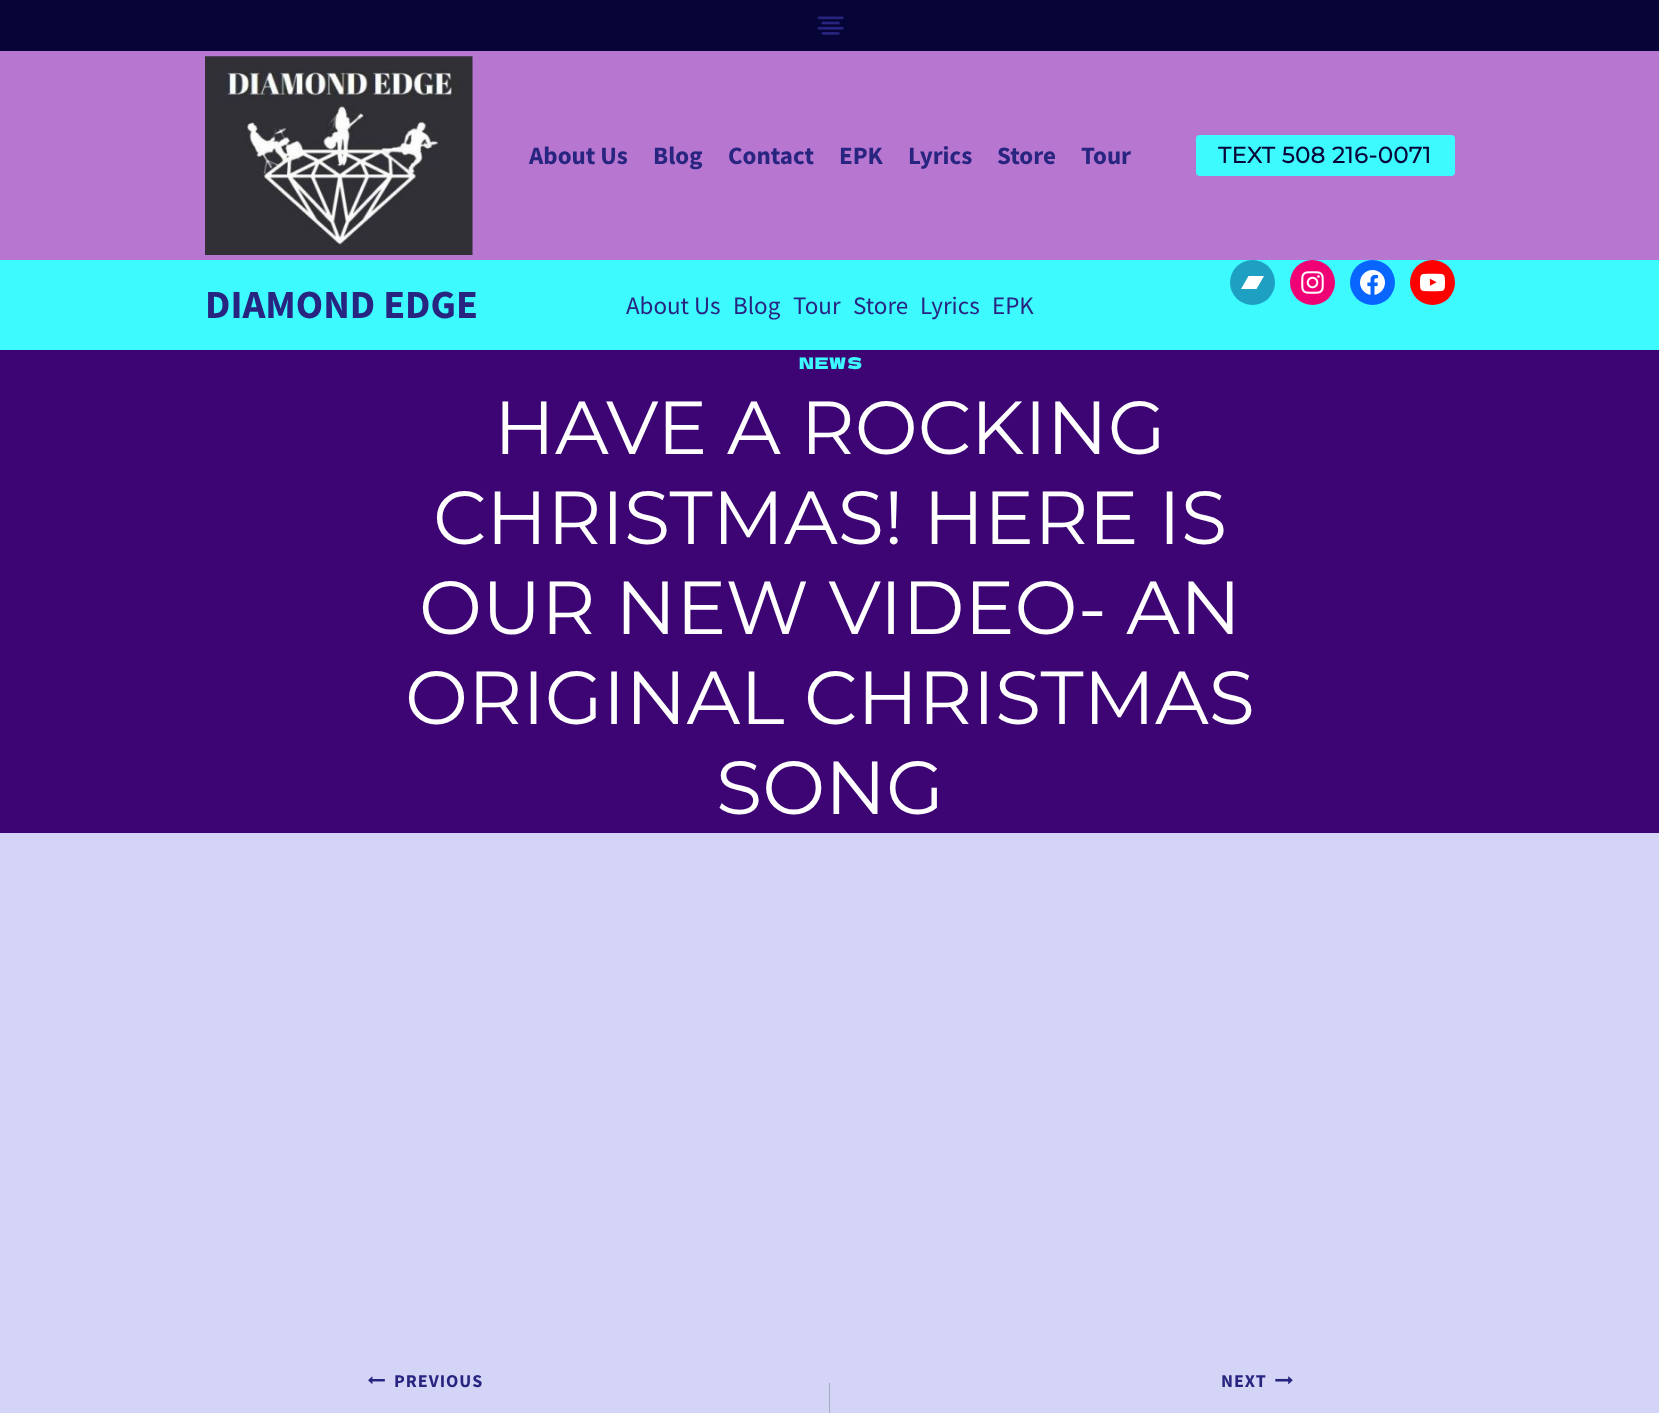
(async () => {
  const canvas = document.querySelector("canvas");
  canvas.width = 1659;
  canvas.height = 1413;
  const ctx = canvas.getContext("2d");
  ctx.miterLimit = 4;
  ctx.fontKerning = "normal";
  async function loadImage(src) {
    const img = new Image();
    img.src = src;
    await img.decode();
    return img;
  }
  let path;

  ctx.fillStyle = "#d4d4f6";
  ctx.fillRect(0, 0, 1659, 1413);
  ctx.fillStyle = "#070538";
  ctx.fillRect(0, 0, 1659, 51);
  ctx.drawImage(await loadImage("img/1.png"), 817, 16, 27, 19);
  ctx.fillStyle = "#b776cf";
  ctx.fillRect(0, 51, 1659, 209);
  ctx.drawImage(await loadImage("img/2.png"), 205, 56, 268, 199);
  ctx.fillStyle = "#3dfaff";
  ctx.beginPath();
  ctx.roundRect(1196, 135, 259, 41, 4);
  ctx.fill();
  ctx.fillRect(0, 260, 1659, 90);
  ctx.fillStyle = "#1ea0c3";
  ctx.beginPath();
  ctx.arc(1252.5, 282.5, 22.5, 0, Math.PI * 2);
  ctx.fill();
  ctx.fillStyle = "#ffffff";
  path = new Path2D("M1256.5 289H1241L1248.5 276H1264L1256.5 289");
  ctx.fill(path);
  ctx.fillStyle = "#f00075";
  ctx.beginPath();
  ctx.arc(1312.5, 282.5, 22.5, 0, Math.PI * 2);
  ctx.fill();
  ctx.drawImage(await loadImage("img/3.png"), 1301, 271, 23, 23);
  ctx.fillStyle = "#0866ff";
  ctx.beginPath();
  ctx.arc(1372.5, 282.5, 22.5, 0, Math.PI * 2);
  ctx.fill();
  ctx.drawImage(await loadImage("img/4.png"), 1360, 270, 25, 25);
  ctx.fillStyle = "#ff0000";
  ctx.beginPath();
  ctx.arc(1432.5, 282.5, 22.5, 0, Math.PI * 2);
  ctx.fill();
  ctx.drawImage(await loadImage("img/5.png"), 1420, 273, 25, 19);
  ctx.fillStyle = "#3d0474";
  ctx.fillRect(0, 350, 1659, 483);
  ctx.drawImage(await loadImage("img/6.png"), 368, 1376, 17, 8);
  ctx.fillStyle = "#a0aec0";
  ctx.fillRect(829, 1383, 1, 30);
  ctx.drawImage(await loadImage("img/7.png"), 1275, 1376, 18, 8);
  ctx.font = "bold 25px Source Sans Pro";
  ctx.fillStyle = "#282580";
  for (const [text, x, y] of [
    ["About Us", 529, 164],
    ["Blog", 653, 164],
    ["Contact", 728, 164],
    ["EPK", 839, 164],
    ["Lyrics", 908, 164],
    ["Store", 997, 164],
    ["Tour", 1081, 164],
  ]) {
    ctx.fillText(text, x, y);
  }
  ctx.letterSpacing = "0.6px";
  ctx.font = "bold 22.5px Montserrat";
  ctx.fillStyle = "#070538";
  ctx.fillText("TEXT 508 216-0071", 1218, 163);
  ctx.letterSpacing = "0px";
  ctx.font = "bold 40px Source Sans Pro";
  ctx.fillStyle = "#282580";
  ctx.fillText("DIAMOND EDGE", 205, 318);
  ctx.font = "25px Source Sans Pro";
  for (const [text, x, y] of [
    ["About Us", 626, 314],
    ["Blog", 733, 314],
    ["Tour", 793, 314],
    ["Store", 853, 314],
    ["Lyrics", 920, 314],
    ["EPK", 992, 314],
  ]) {
    ctx.fillText(text, x, y);
  }
  ctx.letterSpacing = "1px";
  ctx.font = "16px Dela Gothic One";
  ctx.fillStyle = "#3dfaff";
  ctx.fillText("NEWS", 799, 369);
  ctx.letterSpacing = "0px";
  ctx.font = "100 75px Montserrat";
  ctx.fillStyle = "#ffffff";
  for (const [text, x, y] of [
    ["HAVE A ROCKING", 494, 454],
    ["CHRISTMAS! HERE IS", 433, 544],
    ["OUR NEW VIDEO- AN", 419, 634],
    ["ORIGINAL CHRISTMAS", 405, 724],
    ["SONG", 716, 814],
  ]) {
    ctx.fillText(text, x, y);
  }
  ctx.letterSpacing = "1px";
  ctx.font = "bold 18px Source Sans Pro";
  ctx.fillStyle = "#282580";
  ctx.fillText("PREVIOUS", 394, 1387);
  ctx.fillText("NEXT", 1221, 1387);
})();
